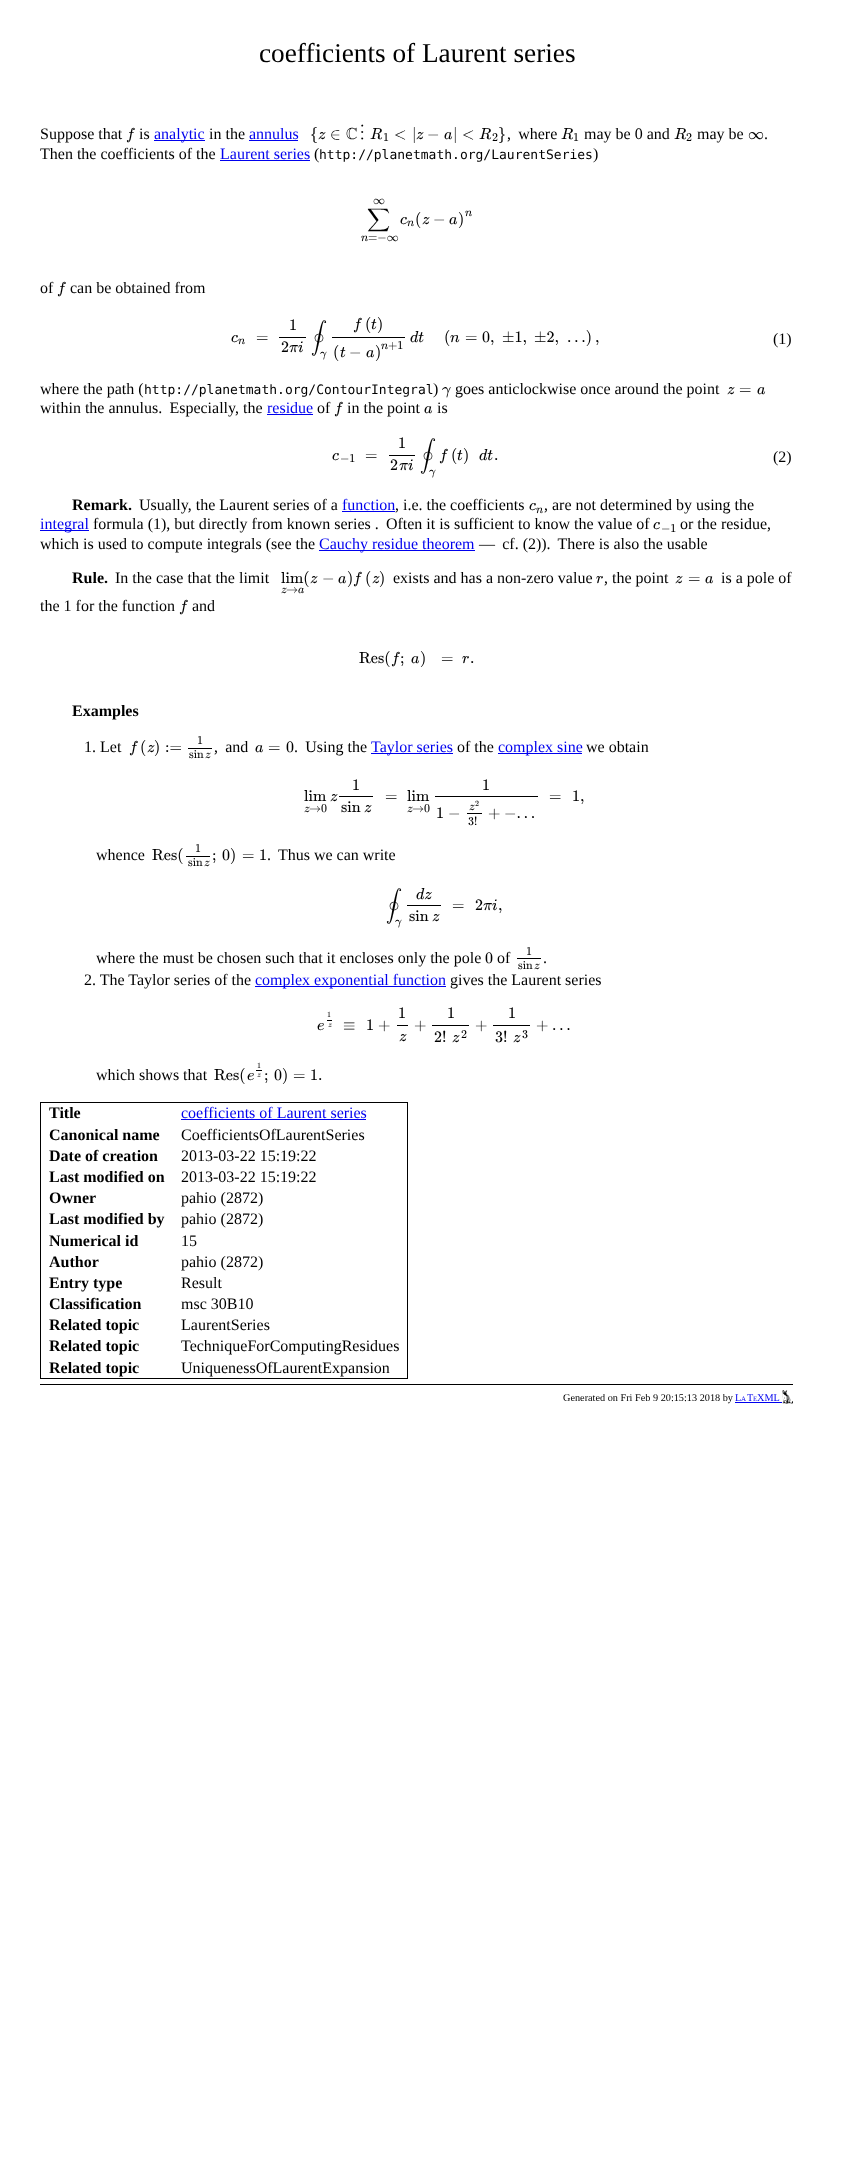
(async () => {
  const canvas = document.querySelector("canvas");
  canvas.width = 849;
  canvas.height = 2177;
  const ctx = canvas.getContext("2d");
  ctx.miterLimit = 4;
  ctx.fontKerning = "normal";
  async function loadImage(src) {
    const img = new Image();
    img.src = src;
    await img.decode();
    return img;
  }

  ctx.fillStyle = "#ffffff";
  ctx.fillRect(0, 0, 849, 2177);
  for (const [x, y, w, h, color] of [
    [154, 140, 51, 1, "#0000ee"],
    [249, 140, 49, 1, "#0000ee"],
    [220, 160, 90, 1, "#0000ee"],
    [279, 337, 27, 1, "#000000"],
    [332, 337, 73, 1, "#000000"],
    [267, 414, 46, 1, "#0000ee"],
    [389, 455, 26, 1, "#000000"],
    [342, 511, 53, 1, "#0000ee"],
    [40, 530, 49, 1, "#0000ee"],
    [319, 550, 156, 1, "#0000ee"],
    [188, 748, 24, 1, "#000000"],
    [371, 753, 82, 1, "#0000ee"],
    [498, 753, 84, 1, "#0000ee"],
    [339, 796, 34, 1, "#000000"],
    [435, 796, 103, 1, "#000000"],
    [467, 813, 15, 1, "#000000"],
    [186, 856, 24, 1, "#000000"],
    [407, 905, 34, 1, "#000000"],
    [517, 958, 24, 1, "#000000"],
    [255, 986, 191, 1, "#0000ee"],
    [327, 1020, 5, 1, "#000000"],
    [397, 1025, 11, 1, "#000000"],
    [432, 1025, 37, 1, "#000000"],
    [493, 1025, 37, 1, "#000000"],
    [256, 1070, 6, 1, "#000000"],
    [40, 1102, 368, 1, "#000000"],
    [407, 1123, 1, 256, "#000000"],
    [40, 1378, 368, 1, "#000000"],
    [40, 1123, 1, 256, "#000000"],
    [40, 1102, 1, 22, "#000000"],
    [407, 1102, 1, 22, "#000000"],
    [181, 1119, 185, 1, "#0000ee"],
    [40, 1384, 753, 1, "#000000"],
    [735, 1402, 47, 1, "#0000ee"],
  ]) {
    ctx.fillStyle = color;
    ctx.fillRect(x, y, w, h);
  }
  ctx.drawImage(await loadImage("img/1.png"), 782, 1390, 11, 14);
  ctx.font = "27.25px Liberation Serif";
  ctx.fillStyle = "#000000";
  ctx.fillText("coefficients of Laurent series", 259, 62);
  ctx.font = "16px Liberation Serif";
  ctx.fillText("Suppose that", 40, 139);
  ctx.font = "italic 16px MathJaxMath";
  ctx.fillText("f", 126, 139);
  ctx.font = "16px Liberation Serif";
  ctx.fillText("is", 139, 139);
  ctx.fillStyle = "#0000ee";
  ctx.fillText("analytic", 154, 139);
  ctx.fillStyle = "#000000";
  ctx.fillText("in the", 209, 139);
  ctx.fillStyle = "#0000ee";
  ctx.fillText("annulus", 249, 139);
  ctx.font = "16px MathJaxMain";
  ctx.fillStyle = "#000000";
  ctx.fillText("{", 310, 139);
  ctx.font = "italic 16px MathJaxMath";
  ctx.fillText("z", 318, 139);
  ctx.font = "16px MathJaxMain";
  ctx.fillText("∈", 330, 139);
  ctx.font = "16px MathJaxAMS";
  ctx.fillText("C", 346, 139);
  ctx.font = "16px MathJaxMain";
  ctx.fillText("⋮", 360, 139);
  ctx.font = "italic 16px MathJaxMath";
  ctx.fillText("R", 370, 139);
  ctx.font = "12px MathJaxMain";
  ctx.fillText("1", 383, 141);
  ctx.font = "16px MathJaxMain";
  ctx.fillText("<", 394, 139);
  ctx.fillText("|", 412, 139);
  ctx.font = "italic 16px MathJaxMath";
  ctx.fillText("z", 416, 139);
  ctx.font = "16px MathJaxMain";
  ctx.fillText("−", 427, 139);
  ctx.font = "italic 16px MathJaxMath";
  ctx.fillText("a", 444, 139);
  ctx.font = "16px MathJaxMain";
  ctx.fillText("|", 453, 139);
  ctx.fillText("<", 462, 139);
  ctx.font = "italic 16px MathJaxMath";
  ctx.fillText("R", 479, 139);
  ctx.font = "12px MathJaxMain";
  ctx.fillText("2", 492, 141);
  ctx.font = "16px MathJaxMain";
  ctx.fillText("}", 498, 139);
  ctx.font = "16px Liberation Serif";
  ctx.fillText(",  where", 507, 139);
  ctx.font = "italic 16px MathJaxMath";
  ctx.fillText("R", 561, 139);
  ctx.font = "12px MathJaxMain";
  ctx.fillText("1", 573, 141);
  ctx.font = "16px Liberation Serif";
  ctx.fillText("may be 0 and", 584, 139);
  ctx.font = "italic 16px MathJaxMath";
  ctx.fillText("R", 674, 139);
  ctx.font = "12px MathJaxMain";
  ctx.fillText("2", 686, 141);
  ctx.font = "16px Liberation Serif";
  ctx.fillText("may be", 697, 139);
  ctx.font = "16px MathJaxMain";
  ctx.fillText("∞", 748, 139);
  ctx.font = "16px Liberation Serif";
  ctx.fillText(".", 764, 139);
  ctx.fillText("Then the coefficients of the", 40, 159);
  ctx.fillStyle = "#0000ee";
  ctx.fillText("Laurent series", 220, 159);
  ctx.fillStyle = "#000000";
  ctx.fillText("(", 314, 159);
  ctx.font = "13px DejaVu Sans Mono";
  ctx.fillText("http://planetmath.org/LaurentSeries", 319, 159);
  ctx.font = "16px Liberation Serif";
  ctx.fillText(")", 593, 159);
  ctx.font = "12px MathJaxMain";
  ctx.fillText("∞", 373, 204);
  ctx.font = "16px 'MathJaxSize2'";
  ctx.fillText("∑", 367, 224);
  ctx.font = "italic 12px MathJaxMath";
  ctx.fillText("n", 361, 241);
  ctx.font = "12px MathJaxMain";
  ctx.fillText("=−∞", 368, 241);
  ctx.font = "italic 16px MathJaxMath";
  ctx.fillText("c", 400, 224);
  ctx.font = "italic 12px MathJaxMath";
  ctx.fillText("n", 407, 226);
  ctx.font = "16px MathJaxMain";
  ctx.fillText("(", 415, 224);
  ctx.font = "italic 16px MathJaxMath";
  ctx.fillText("z", 422, 224);
  ctx.font = "16px MathJaxMain";
  ctx.fillText("−", 433, 224);
  ctx.font = "italic 16px MathJaxMath";
  ctx.fillText("a", 449, 224);
  ctx.font = "16px MathJaxMain";
  ctx.fillText(")", 458, 224);
  ctx.font = "italic 12px MathJaxMath";
  ctx.fillText("n", 465, 216);
  ctx.font = "16px Liberation Serif";
  ctx.fillText("of", 40, 293);
  ctx.font = "italic 16px MathJaxMath";
  ctx.fillText("f", 57, 293);
  ctx.font = "16px Liberation Serif";
  ctx.fillText("can be obtained from", 70, 293);
  ctx.font = "italic 16px MathJaxMath";
  ctx.fillText("c", 231, 342);
  ctx.font = "italic 12px MathJaxMath";
  ctx.fillText("n", 238, 344);
  ctx.font = "16px MathJaxMain";
  for (const [text, x, y] of [
    ["=", 256, 342],
    ["1", 289, 330],
    ["2", 281, 352],
  ]) {
    ctx.fillText(text, x, y);
  }
  ctx.font = "italic 16px MathJaxMath";
  ctx.fillText("πi", 289, 352);
  ctx.font = "16px 'MathJaxSize2'";
  ctx.fillText("∮", 311, 342);
  ctx.font = "italic 12px MathJaxMath";
  ctx.fillText("γ", 320, 357);
  ctx.font = "italic 16px MathJaxMath";
  ctx.fillText("f", 353, 329);
  ctx.font = "16px MathJaxMain";
  ctx.fillText("(", 365, 329);
  ctx.font = "italic 16px MathJaxMath";
  ctx.fillText("t", 371, 329);
  ctx.font = "16px MathJaxMain";
  ctx.fillText(")", 377, 329);
  ctx.fillText("(", 333, 357);
  ctx.font = "italic 16px MathJaxMath";
  ctx.fillText("t", 340, 357);
  ctx.font = "16px MathJaxMain";
  ctx.fillText("−", 349, 357);
  ctx.font = "italic 16px MathJaxMath";
  ctx.fillText("a", 366, 357);
  ctx.font = "16px MathJaxMain";
  ctx.fillText(")", 375, 357);
  ctx.font = "italic 12px MathJaxMath";
  ctx.fillText("n", 381, 349);
  ctx.font = "12px MathJaxMain";
  ctx.fillText("+1", 388, 349);
  ctx.font = "italic 16px MathJaxMath";
  ctx.fillText("dt", 410, 342);
  ctx.font = "16px MathJaxMain";
  ctx.fillText("(", 444, 342);
  ctx.font = "italic 16px MathJaxMath";
  ctx.fillText("n", 450, 342);
  ctx.font = "16px MathJaxMain";
  for (const [text, x, y] of [
    ["=", 465, 342],
    ["0,", 482, 342],
    ["±1,", 502, 342],
    ["±2,", 534, 342],
    ["…)", 567, 342],
    [",", 595, 342],
  ]) {
    ctx.fillText(text, x, y);
  }
  ctx.font = "16px Liberation Serif";
  ctx.fillText("(1)", 773, 344);
  ctx.fillText("where the path (", 40, 394);
  ctx.font = "13px DejaVu Sans Mono";
  ctx.fillText("http://planetmath.org/ContourIntegral", 144, 394);
  ctx.font = "16px Liberation Serif";
  ctx.fillText(")", 433, 394);
  ctx.font = "italic 16px MathJaxMath";
  ctx.fillText("γ", 442, 394);
  ctx.font = "16px Liberation Serif";
  ctx.fillText("goes anticlockwise once around the point", 455, 394);
  ctx.font = "italic 16px MathJaxMath";
  ctx.fillText("z", 727, 394);
  ctx.font = "16px MathJaxMain";
  ctx.fillText("=", 739, 394);
  ctx.font = "italic 16px MathJaxMath";
  ctx.fillText("a", 757, 394);
  ctx.font = "16px Liberation Serif";
  ctx.fillText("within the annulus.  Especially, the", 40, 413);
  ctx.fillStyle = "#0000ee";
  ctx.fillText("residue", 267, 413);
  ctx.fillStyle = "#000000";
  ctx.fillText("of", 317, 413);
  ctx.font = "italic 16px MathJaxMath";
  ctx.fillText("f", 334, 413);
  ctx.font = "16px Liberation Serif";
  ctx.fillText("in the point", 347, 413);
  ctx.font = "italic 16px MathJaxMath";
  ctx.fillText("a", 424, 413);
  ctx.font = "16px Liberation Serif";
  ctx.fillText("is", 437, 413);
  ctx.font = "italic 16px MathJaxMath";
  ctx.fillText("c", 332, 460);
  ctx.font = "12px MathJaxMain";
  ctx.fillText("−1", 340, 462);
  ctx.font = "16px MathJaxMain";
  for (const [text, x, y] of [
    ["=", 365, 460],
    ["1", 398, 448],
    ["2", 390, 470],
  ]) {
    ctx.fillText(text, x, y);
  }
  ctx.font = "italic 16px MathJaxMath";
  ctx.fillText("πi", 399, 470);
  ctx.font = "16px 'MathJaxSize2'";
  ctx.fillText("∮", 420, 460);
  ctx.font = "italic 12px MathJaxMath";
  ctx.fillText("γ", 429, 475);
  ctx.font = "italic 16px MathJaxMath";
  ctx.fillText("f", 439, 460);
  ctx.font = "16px MathJaxMain";
  ctx.fillText("(", 451, 460);
  ctx.font = "italic 16px MathJaxMath";
  ctx.fillText("t", 457, 460);
  ctx.font = "16px MathJaxMain";
  ctx.fillText(")", 463, 460);
  ctx.font = "italic 16px MathJaxMath";
  ctx.fillText("dt", 479, 460);
  ctx.font = "16px MathJaxMain";
  ctx.fillText(".", 494, 460);
  ctx.font = "16px Liberation Serif";
  ctx.fillText("(2)", 773, 462);
  ctx.font = "bold 16px Liberation Serif";
  ctx.fillText("Remark.", 72, 510);
  ctx.font = "16px Liberation Serif";
  ctx.fillText("Usually, the Laurent series of a", 139, 510);
  ctx.fillStyle = "#0000ee";
  ctx.fillText("function", 342, 510);
  ctx.fillStyle = "#000000";
  ctx.fillText(", i.e. the coefficients", 395, 510);
  ctx.font = "italic 16px MathJaxMath";
  ctx.fillText("c", 529, 510);
  ctx.font = "italic 12px MathJaxMath";
  ctx.fillText("n", 536, 513);
  ctx.font = "16px Liberation Serif";
  ctx.fillText(", are not determined by using the", 544, 510);
  ctx.fillStyle = "#0000ee";
  ctx.fillText("integral", 40, 529);
  ctx.fillStyle = "#000000";
  ctx.fillText("formula (1), but directly from known series .  Often it is sufficient to know the value of", 93, 529);
  ctx.font = "italic 16px MathJaxMath";
  ctx.fillText("c", 653, 529);
  ctx.font = "12px MathJaxMain";
  ctx.fillText("−1", 661, 532);
  ctx.font = "16px Liberation Serif";
  ctx.fillText("or the residue,", 680, 529);
  ctx.fillText("which is used to compute integrals (see the", 40, 549);
  ctx.fillStyle = "#0000ee";
  ctx.fillText("Cauchy residue theorem", 319, 549);
  ctx.fillStyle = "#000000";
  ctx.fillText("—  cf. (2)).  There is also the usable", 479, 549);
  ctx.font = "bold 16px Liberation Serif";
  ctx.fillText("Rule.", 72, 583);
  ctx.font = "16px Liberation Serif";
  ctx.fillText("In the case that the limit", 115, 583);
  ctx.font = "16px MathJaxMain";
  ctx.fillText("lim(", 281, 583);
  ctx.font = "italic 12px MathJaxMath";
  ctx.fillText("z", 281, 593);
  ctx.font = "12px MathJaxMain";
  ctx.fillText("→", 286, 593);
  ctx.font = "italic 12px MathJaxMath";
  ctx.fillText("a", 298, 593);
  ctx.font = "italic 16px MathJaxMath";
  ctx.fillText("z", 310, 583);
  ctx.font = "16px MathJaxMain";
  ctx.fillText("−", 322, 583);
  ctx.font = "italic 16px MathJaxMath";
  ctx.fillText("a", 338, 583);
  ctx.font = "16px MathJaxMain";
  ctx.fillText(")", 347, 583);
  ctx.font = "italic 16px MathJaxMath";
  ctx.fillText("f", 353, 583);
  ctx.font = "16px MathJaxMain";
  ctx.fillText("(", 365, 583);
  ctx.font = "italic 16px MathJaxMath";
  ctx.fillText("z", 372, 583);
  ctx.font = "16px MathJaxMain";
  ctx.fillText(")", 379, 583);
  ctx.font = "16px Liberation Serif";
  ctx.fillText("exists and has a non-zero value", 393, 583);
  ctx.font = "italic 16px MathJaxMath";
  ctx.fillText("r", 596, 583);
  ctx.font = "16px Liberation Serif";
  ctx.fillText(", the point", 604, 583);
  ctx.font = "italic 16px MathJaxMath";
  ctx.fillText("z", 675, 583);
  ctx.font = "16px MathJaxMain";
  ctx.fillText("=", 688, 583);
  ctx.font = "italic 16px MathJaxMath";
  ctx.fillText("a", 705, 583);
  ctx.font = "16px Liberation Serif";
  ctx.fillText("is a pole of", 721, 583);
  ctx.fillText("the 1 for the function", 40, 611);
  ctx.font = "italic 16px MathJaxMath";
  ctx.fillText("f", 179, 611);
  ctx.font = "16px Liberation Serif";
  ctx.fillText("and", 192, 611);
  ctx.font = "16px MathJaxMain";
  ctx.fillText("Res(", 359, 663);
  ctx.font = "italic 16px MathJaxMath";
  ctx.fillText("f", 391, 663);
  ctx.font = "16px MathJaxMain";
  ctx.fillText(";", 400, 663);
  ctx.font = "italic 16px MathJaxMath";
  ctx.fillText("a", 411, 663);
  ctx.font = "16px MathJaxMain";
  ctx.fillText(")", 420, 663);
  ctx.fillText("=", 441, 663);
  ctx.font = "italic 16px MathJaxMath";
  ctx.fillText("r", 462, 663);
  ctx.font = "16px MathJaxMain";
  ctx.fillText(".", 470, 663);
  ctx.font = "bold 16px Liberation Serif";
  ctx.fillText("Examples", 72, 716);
  ctx.font = "italic 16px MathJaxMath";
  ctx.fillText("f", 129, 752);
  ctx.font = "16px MathJaxMain";
  ctx.fillText("(", 140, 752);
  ctx.font = "italic 16px MathJaxMath";
  ctx.fillText("z", 147, 752);
  ctx.font = "16px MathJaxMain";
  ctx.fillText(")", 154, 752);
  ctx.fillText(":=", 165, 752);
  ctx.font = "12px MathJaxMain";
  ctx.fillText("1", 197, 744);
  ctx.fillText("sin", 189, 758);
  ctx.font = "italic 12px MathJaxMath";
  ctx.fillText("z", 205, 758);
  ctx.font = "16px Liberation Serif";
  ctx.fillText(",  and", 214, 752);
  ctx.font = "italic 16px MathJaxMath";
  ctx.fillText("a", 255, 752);
  ctx.font = "16px MathJaxMain";
  ctx.fillText("=", 268, 752);
  ctx.fillText("0", 286, 752);
  ctx.font = "16px Liberation Serif";
  ctx.fillText(".  Using the", 294, 752);
  ctx.fillStyle = "#0000ee";
  ctx.fillText("Taylor series", 371, 752);
  ctx.fillStyle = "#000000";
  ctx.fillText("of the", 457, 752);
  ctx.fillStyle = "#0000ee";
  ctx.fillText("complex sine", 498, 752);
  ctx.fillStyle = "#000000";
  ctx.fillText("we obtain", 586, 752);
  ctx.font = "16px MathJaxMain";
  ctx.fillText("lim", 304, 801);
  ctx.font = "italic 12px MathJaxMath";
  ctx.fillText("z", 304, 812);
  ctx.font = "12px MathJaxMain";
  ctx.fillText("→0", 309, 812);
  ctx.font = "italic 16px MathJaxMath";
  ctx.fillText("z", 330, 801);
  ctx.font = "16px MathJaxMain";
  ctx.fillText("1", 352, 790);
  ctx.fillText("sin", 341, 812);
  ctx.font = "italic 16px MathJaxMath";
  ctx.fillText("z", 364, 812);
  ctx.font = "16px MathJaxMain";
  ctx.fillText("=", 385, 801);
  ctx.fillText("lim", 407, 801);
  ctx.font = "italic 12px MathJaxMath";
  ctx.fillText("z", 407, 812);
  ctx.font = "12px MathJaxMain";
  ctx.fillText("→0", 412, 812);
  ctx.font = "16px MathJaxMain";
  for (const [text, x, y] of [
    ["1", 482, 790],
    ["1", 436, 818],
    ["−", 448, 818],
  ]) {
    ctx.fillText(text, x, y);
  }
  ctx.font = "8px MathJaxMain";
  ctx.fillText("2", 475, 806);
  ctx.font = "italic 12px MathJaxMath";
  ctx.fillText("z", 469, 810);
  ctx.font = "12px MathJaxMain";
  ctx.fillText("3!", 468, 825);
  ctx.font = "16px MathJaxMain";
  for (const [text, x, y] of [
    ["+", 488, 818],
    ["−…", 504, 818],
    ["=", 549, 801],
    ["1,", 572, 801],
  ]) {
    ctx.fillText(text, x, y);
  }
  ctx.font = "16px Liberation Serif";
  ctx.fillText("whence", 96, 860);
  ctx.font = "16px MathJaxMain";
  ctx.fillText("Res(", 152, 860);
  ctx.font = "12px MathJaxMain";
  ctx.fillText("1", 195, 852);
  ctx.fillText("sin", 188, 866);
  ctx.font = "italic 12px MathJaxMath";
  ctx.fillText("z", 204, 866);
  ctx.font = "16px MathJaxMain";
  for (const [text, x, y] of [
    [";", 212, 860],
    ["0)", 222, 860],
    ["=", 242, 860],
    ["1", 259, 860],
  ]) {
    ctx.fillText(text, x, y);
  }
  ctx.font = "16px Liberation Serif";
  ctx.fillText(".  Thus we can write", 267, 860);
  ctx.font = "16px 'MathJaxSize2'";
  ctx.fillText("∮", 386, 910);
  ctx.font = "italic 12px MathJaxMath";
  ctx.fillText("γ", 395, 925);
  ctx.font = "italic 16px MathJaxMath";
  ctx.fillText("dz", 416, 899);
  ctx.font = "16px MathJaxMain";
  ctx.fillText("sin", 409, 921);
  ctx.font = "italic 16px MathJaxMath";
  ctx.fillText("z", 432, 921);
  ctx.font = "16px MathJaxMain";
  ctx.fillText("=", 452, 910);
  ctx.fillText("2", 475, 910);
  ctx.font = "italic 16px MathJaxMath";
  ctx.fillText("πi", 483, 910);
  ctx.font = "16px MathJaxMain";
  ctx.fillText(",", 498, 910);
  ctx.font = "16px Liberation Serif";
  ctx.fillText("where the must be chosen such that it encloses only the pole", 96, 963);
  ctx.font = "16px MathJaxMain";
  ctx.fillText("0", 485, 963);
  ctx.font = "16px Liberation Serif";
  ctx.fillText("of", 497, 963);
  ctx.font = "12px MathJaxMain";
  ctx.fillText("1", 526, 955);
  ctx.fillText("sin", 518, 969);
  ctx.font = "italic 12px MathJaxMath";
  ctx.fillText("z", 534, 969);
  ctx.font = "16px Liberation Serif";
  for (const [text, x, y] of [
    [".", 543, 963],
    ["1. Let", 84, 752],
    ["2. The Taylor series of the", 84, 985],
  ]) {
    ctx.fillText(text, x, y);
  }
  ctx.fillStyle = "#0000ee";
  ctx.fillText("complex exponential function", 255, 985);
  ctx.fillStyle = "#000000";
  ctx.fillText("gives the Laurent series", 450, 985);
  ctx.font = "italic 16px MathJaxMath";
  ctx.fillText("e", 317, 1030);
  ctx.font = "8px MathJaxMain";
  ctx.fillText("1", 327, 1017);
  ctx.font = "italic 8px MathJaxMath";
  ctx.fillText("z", 328, 1027);
  ctx.font = "16px MathJaxMain";
  for (const [text, x, y] of [
    ["≡", 343, 1030],
    ["1", 366, 1030],
    ["+", 378, 1030],
    ["1", 398, 1018],
  ]) {
    ctx.fillText(text, x, y);
  }
  ctx.font = "italic 16px MathJaxMath";
  ctx.fillText("z", 399, 1041);
  ctx.font = "16px MathJaxMain";
  for (const [text, x, y] of [
    ["+", 414, 1030],
    ["1", 447, 1018],
    ["2!", 434, 1042],
  ]) {
    ctx.fillText(text, x, y);
  }
  ctx.font = "italic 16px MathJaxMath";
  ctx.fillText("z", 452, 1042);
  ctx.font = "12px MathJaxMain";
  ctx.fillText("2", 461, 1038);
  ctx.font = "16px MathJaxMain";
  for (const [text, x, y] of [
    ["+", 475, 1030],
    ["1", 508, 1018],
    ["3!", 495, 1042],
  ]) {
    ctx.fillText(text, x, y);
  }
  ctx.font = "italic 16px MathJaxMath";
  ctx.fillText("z", 513, 1042);
  ctx.font = "12px MathJaxMain";
  ctx.fillText("3", 522, 1038);
  ctx.font = "16px MathJaxMain";
  ctx.fillText("+", 536, 1030);
  ctx.fillText("…", 552, 1030);
  ctx.font = "16px Liberation Serif";
  ctx.fillText("which shows that", 96, 1080);
  ctx.font = "16px MathJaxMain";
  ctx.fillText("Res(", 214, 1080);
  ctx.font = "italic 16px MathJaxMath";
  ctx.fillText("e", 247, 1080);
  ctx.font = "8px MathJaxMain";
  ctx.fillText("1", 257, 1068);
  ctx.font = "italic 8px MathJaxMath";
  ctx.fillText("z", 257, 1077);
  ctx.font = "16px MathJaxMain";
  for (const [text, x, y] of [
    [";", 264, 1080],
    ["0)", 274, 1080],
    ["=", 293, 1080],
    ["1.", 310, 1080],
  ]) {
    ctx.fillText(text, x, y);
  }
  ctx.font = "bold 16px Liberation Serif";
  ctx.fillText("Title", 49, 1118);
  ctx.font = "16px Liberation Serif";
  ctx.fillStyle = "#0000ee";
  ctx.fillText("coefficients of Laurent series", 181, 1118);
  ctx.font = "bold 16px Liberation Serif";
  ctx.fillStyle = "#000000";
  ctx.fillText("Canonical name", 49, 1140);
  ctx.font = "16px Liberation Serif";
  ctx.fillText("CoefficientsOfLaurentSeries", 181, 1140);
  ctx.font = "bold 16px Liberation Serif";
  ctx.fillText("Date of creation", 49, 1161);
  ctx.font = "16px Liberation Serif";
  ctx.fillText("2013-03-22 15:19:22", 181, 1161);
  ctx.font = "bold 16px Liberation Serif";
  ctx.fillText("Last modified on", 49, 1182);
  ctx.font = "16px Liberation Serif";
  ctx.fillText("2013-03-22 15:19:22", 181, 1182);
  ctx.font = "bold 16px Liberation Serif";
  ctx.fillText("Owner", 49, 1203);
  ctx.font = "16px Liberation Serif";
  ctx.fillText("pahio (2872)", 181, 1203);
  ctx.font = "bold 16px Liberation Serif";
  ctx.fillText("Last modified by", 49, 1224);
  ctx.font = "16px Liberation Serif";
  ctx.fillText("pahio (2872)", 181, 1224);
  ctx.font = "bold 16px Liberation Serif";
  ctx.fillText("Numerical id", 49, 1246);
  ctx.font = "16px Liberation Serif";
  ctx.fillText("15", 181, 1246);
  ctx.font = "bold 16px Liberation Serif";
  ctx.fillText("Author", 49, 1267);
  ctx.font = "16px Liberation Serif";
  ctx.fillText("pahio (2872)", 181, 1267);
  ctx.font = "bold 16px Liberation Serif";
  ctx.fillText("Entry type", 49, 1288);
  ctx.font = "16px Liberation Serif";
  ctx.fillText("Result", 181, 1288);
  ctx.font = "bold 16px Liberation Serif";
  ctx.fillText("Classification", 49, 1309);
  ctx.font = "16px Liberation Serif";
  ctx.fillText("msc 30B10", 181, 1309);
  ctx.font = "bold 16px Liberation Serif";
  ctx.fillText("Related topic", 49, 1330);
  ctx.font = "16px Liberation Serif";
  ctx.fillText("LaurentSeries", 181, 1330);
  ctx.font = "bold 16px Liberation Serif";
  ctx.fillText("Related topic", 49, 1351);
  ctx.font = "16px Liberation Serif";
  ctx.fillText("TechniqueForComputingResidues", 181, 1351);
  ctx.font = "bold 16px Liberation Serif";
  ctx.fillText("Related topic", 49, 1373);
  ctx.font = "16px Liberation Serif";
  ctx.fillText("UniquenessOfLaurentExpansion", 181, 1373);
  ctx.font = "10.25px Liberation Serif";
  ctx.fillText("Generated on Fri Feb 9 20:15:13 2018 by", 563, 1401);
  ctx.fillStyle = "#0000ee";
  ctx.fillText("L", 735, 1401);
  ctx.font = "7px Liberation Serif";
  ctx.fillText("A", 741, 1401);
  ctx.font = "10.25px Liberation Serif";
  ctx.fillText("T", 747, 1401);
  ctx.font = "7px Liberation Serif";
  ctx.fillText("E", 753, 1401);
  ctx.font = "10.25px Liberation Serif";
  ctx.fillText("XML", 757, 1401);
})();
